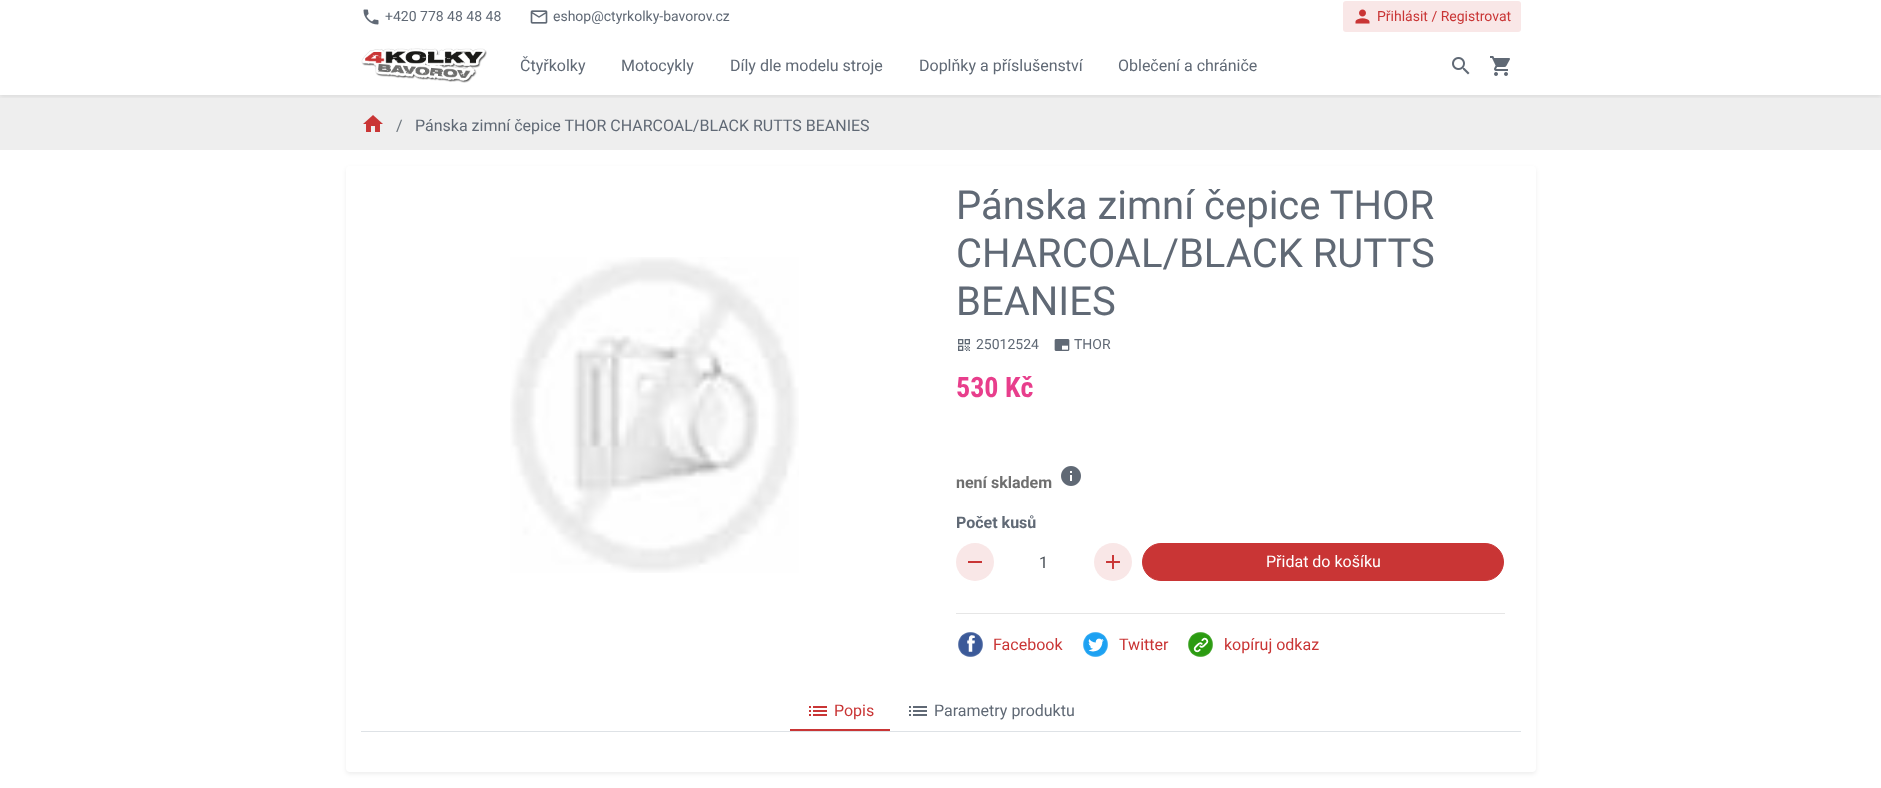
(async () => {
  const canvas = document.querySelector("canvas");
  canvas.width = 1881;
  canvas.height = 788;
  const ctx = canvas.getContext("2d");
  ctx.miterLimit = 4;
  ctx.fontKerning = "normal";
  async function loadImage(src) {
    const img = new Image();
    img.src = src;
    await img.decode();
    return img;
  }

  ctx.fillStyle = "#ffffff";
  ctx.fillRect(0, 0, 1881, 788);
  ctx.drawImage(await loadImage("img/1.png"), 363, 9, 16, 16);
  ctx.drawImage(await loadImage("img/2.png"), 530, 10, 18, 14);
  ctx.fillStyle = "#f9e7e7";
  ctx.beginPath();
  ctx.roundRect(1343, 1, 178, 31, 3);
  ctx.fill();
  ctx.drawImage(await loadImage("img/3.png"), 1355, 9, 15, 15);
  ctx.fillStyle = "#eeeeee";
  ctx.fillRect(0, 95, 1881, 55);
  ctx.save();
  ctx.beginPath();
  ctx.rect(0, 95, 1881, 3);
  ctx.clip();
  ctx.fillStyle = "rgba(0, 0, 0, 0.07)";
  ctx.filter = "blur(2px)";
  ctx.beginPath();
  ctx.rect(0, 39, 1881, 58);
  ctx.fill();
  ctx.filter = "none";
  ctx.restore();
  ctx.drawImage(await loadImage("img/4.png"), 361, 48, 126, 35);
  ctx.drawImage(await loadImage("img/5.png"), 1452, 57, 18, 18);
  ctx.drawImage(await loadImage("img/6.png"), 1490, 56, 20, 20);
  ctx.drawImage(await loadImage("img/7.png"), 363, 115, 20, 17);
  ctx.fillStyle = "rgba(0, 0, 0, 0.07)";
  ctx.filter = "blur(2px)";
  ctx.beginPath();
  ctx.roundRect(346, 168, 1190, 606, 4);
  ctx.fill();
  ctx.filter = "none";
  ctx.fillStyle = "#ffffff";
  ctx.beginPath();
  ctx.roundRect(346, 166, 1190, 606, 4);
  ctx.fill();
  ctx.drawImage(await loadImage("img/8.png"), 510, 257, 289, 316);
  ctx.drawImage(await loadImage("img/9.png"), 958, 339, 12, 12);
  ctx.drawImage(await loadImage("img/10.png"), 1054, 339, 16, 12);
  ctx.drawImage(await loadImage("img/11.png"), 1061, 466, 20, 20);
  ctx.fillStyle = "#f9e7e7";
  ctx.beginPath();
  ctx.arc(975, 562, 19, 0, Math.PI * 2);
  ctx.fill();
  ctx.fillStyle = "#c93535";
  ctx.fillRect(968, 561, 14, 2);
  ctx.fillStyle = "#f9e7e7";
  ctx.beginPath();
  ctx.arc(1113, 562, 19, 0, Math.PI * 2);
  ctx.fill();
  ctx.drawImage(await loadImage("img/12.png"), 1106, 555, 14, 14);
  ctx.fillStyle = "#c93535";
  ctx.beginPath();
  ctx.roundRect(1142.5, 543.5, 361, 37, 18.5);
  ctx.fill();
  ctx.strokeStyle = "#c93535";
  ctx.stroke();
  ctx.fillStyle = "#e6e6e6";
  ctx.fillRect(956, 613, 549, 1);
  ctx.drawImage(await loadImage("img/13.png"), 958, 632, 25, 25);
  ctx.drawImage(await loadImage("img/14.png"), 1083, 632, 25, 25);
  ctx.drawImage(await loadImage("img/15.png"), 1188, 632, 25, 25);
  ctx.fillStyle = "#dee2e6";
  ctx.fillRect(361, 731, 1160, 1);
  ctx.fillStyle = "#c93535";
  ctx.fillRect(790, 729, 100, 2);
  ctx.drawImage(await loadImage("img/16.png"), 809, 706, 18, 10);
  ctx.drawImage(await loadImage("img/17.png"), 909, 706, 18, 10);
  ctx.font = "14px Roboto";
  ctx.fillStyle = "#606975";
  ctx.fillText("+420 778 48 48 48", 385, 21);
  ctx.fillText("eshop@ctyrkolky-bavorov.cz", 553, 21);
  ctx.fillStyle = "#c93535";
  ctx.fillText("Přihlásit / Registrovat", 1377, 21);
  ctx.font = "16px Roboto";
  ctx.fillStyle = "#606975";
  for (const [text, x, y] of [
    ["Čtyřkolky", 520, 71],
    ["Motocykly", 621, 71],
    ["Díly dle modelu stroje", 730, 71],
    ["Doplňky a příslušenství", 919, 71],
    ["Oblečení a chrániče", 1118, 71],
  ]) {
    ctx.fillText(text, x, y);
  }
  ctx.fillStyle = "#6c757d";
  ctx.fillText("/", 396, 131);
  ctx.fillStyle = "#606975";
  ctx.fillText("Pánska zimní čepice THOR CHARCOAL/BLACK RUTTS BEANIES", 415, 131);
  ctx.font = "40px Roboto";
  for (const [text, x, y] of [
    ["Pánska zimní čepice THOR", 956, 219],
    ["CHARCOAL/BLACK RUTTS", 956, 267],
    ["BEANIES", 956, 315],
  ]) {
    ctx.fillText(text, x, y);
  }
  ctx.font = "14px Roboto";
  ctx.fillText("25012524", 976, 349);
  ctx.fillText("THOR", 1074, 349);
  ctx.font = "bold 28px Roboto Condensed";
  ctx.fillStyle = "#e83e8c";
  ctx.fillText("530 Kč", 956, 397);
  ctx.font = "bold 16px Roboto";
  ctx.fillStyle = "#6f6f6f";
  ctx.fillText("není skladem", 956, 488);
  ctx.fillStyle = "#606975";
  ctx.fillText("Počet kusů", 956, 528);
  ctx.font = "16px Roboto";
  ctx.fillStyle = "#495057";
  ctx.fillText("1", 1039, 568);
  ctx.fillStyle = "#ffffff";
  ctx.fillText("Přidat do košíku", 1266, 567);
  ctx.fillStyle = "#c93535";
  for (const [text, x, y] of [
    ["Facebook", 993, 650],
    ["Twitter", 1119, 650],
    ["kopíruj odkaz", 1224, 650],
    ["Popis", 834, 716],
  ]) {
    ctx.fillText(text, x, y);
  }
  ctx.fillStyle = "#606975";
  ctx.fillText("Parametry produktu", 934, 716);
})();
